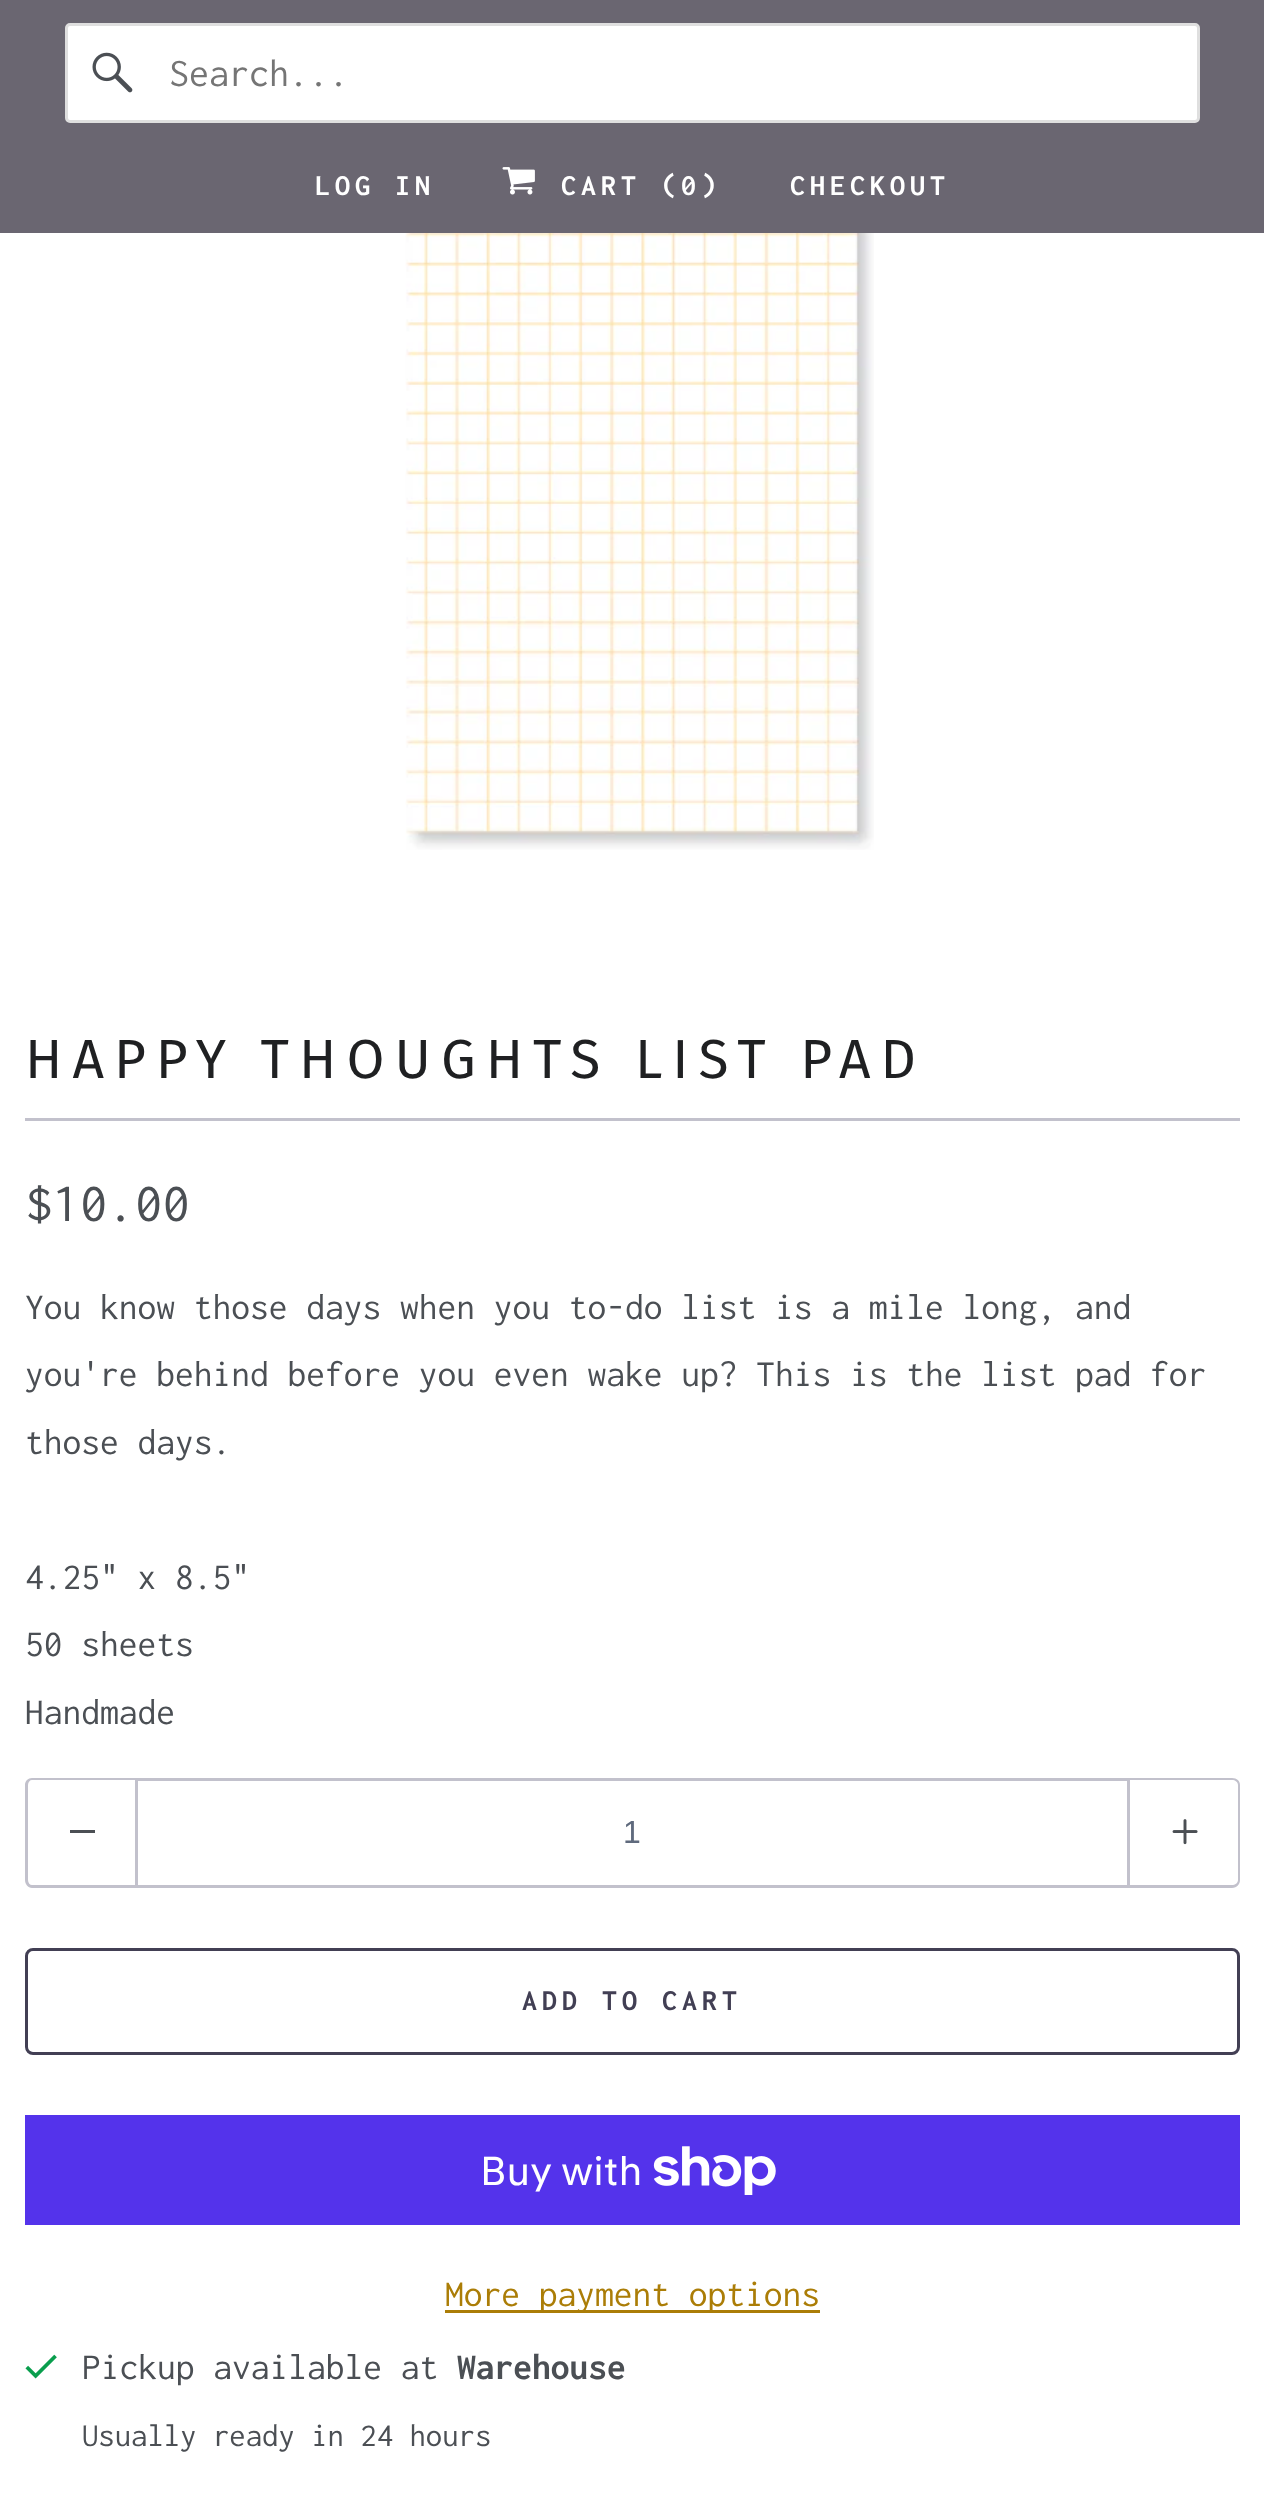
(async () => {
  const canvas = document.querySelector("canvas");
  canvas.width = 1264;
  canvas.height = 2514;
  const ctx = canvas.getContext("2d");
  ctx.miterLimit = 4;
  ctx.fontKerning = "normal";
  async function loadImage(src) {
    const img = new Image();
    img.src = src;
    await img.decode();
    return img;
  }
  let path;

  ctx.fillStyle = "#ffffff";
  ctx.fillRect(0, 0, 1264, 2514);
  ctx.fillStyle = "#6a6671";
  ctx.fillRect(0, 0, 1264, 233);
  ctx.fillStyle = "#ffffff";
  ctx.beginPath();
  ctx.roundRect(66.5, 24.5, 1132, 97, 3.5);
  ctx.fill();
  ctx.strokeStyle = "#dfdfdf";
  ctx.lineWidth = 3;
  ctx.stroke();
  ctx.drawImage(await loadImage("img/1.png"), 92, 52, 41, 41);
  ctx.drawImage(await loadImage("img/2.png"), 502, 167, 33, 28);
  ctx.drawImage(await loadImage("img/3.png"), 405, 233, 469, 617);
  ctx.fillStyle = "#c2c1cc";
  ctx.fillRect(25, 1118, 1215, 3);
  path = new Path2D("M32 1778H135V1888H32C28 1888 25 1884 25 1880V1785C25 1781 28 1778 32 1778ZM32 1780H135V1885H32C30 1885 28 1883 28 1880V1785C28 1782 30 1780 32 1780Z");
  ctx.fill(path, "evenodd");
  ctx.fillStyle = "#4b4f54";
  ctx.fillRect(70, 1830, 25, 3);
  ctx.strokeStyle = "#c2c1cc";
  ctx.strokeRect(136.5, 1779.5, 992, 107);
  ctx.fillStyle = "#c2c1cc";
  path = new Path2D("M1130 1778H1232C1237 1778 1240 1781 1240 1785V1880C1240 1884 1237 1888 1232 1888H1130ZM1130 1780H1232C1235 1780 1238 1782 1238 1785V1880C1238 1883 1235 1885 1232 1885H1130Z");
  ctx.fill(path, "evenodd");
  ctx.drawImage(await loadImage("img/4.png"), 1172, 1819, 26, 26);
  ctx.beginPath();
  ctx.roundRect(26.5, 1949.5, 1212, 104, 6.5);
  ctx.strokeStyle = "#423f54";
  ctx.stroke();
  ctx.fillStyle = "#5433eb";
  ctx.fillRect(25, 2115, 1215, 110);
  ctx.drawImage(await loadImage("img/5.png"), 653, 2146, 123, 49);
  ctx.fillStyle = "#ab7d07";
  ctx.fillRect(445, 2310, 375, 3);
  ctx.drawImage(await loadImage("img/6.png"), 25, 2354, 32, 25);
  ctx.font = "40px Inconsolata";
  ctx.fillStyle = "#757575";
  ctx.fillText("Search...", 169, 86);
  ctx.letterSpacing = "5px";
  ctx.font = "bold 30px Inconsolata";
  ctx.fillStyle = "#ffffff";
  for (const [text, x, y] of [
    ["LOG IN", 315, 195],
    ["CART (0)", 561, 195],
    ["CHECKOUT", 790, 195],
  ]) {
    ctx.fillText(text, x, y);
  }
  ctx.letterSpacing = "10px";
  ctx.font = "55px Fira Sans";
  ctx.fillStyle = "#1f2022";
  ctx.fillText("HAPPY THOUGHTS LIST PAD", 25, 1078);
  ctx.letterSpacing = "0px";
  ctx.font = "55px Inconsolata";
  ctx.fillStyle = "#4b4f54";
  ctx.fillText("$10.00", 25, 1221);
  ctx.font = "37.5px Inconsolata";
  for (const [text, x, y] of [
    ["You know those days when you to-do list is a mile long, and", 25, 1319],
    ["you're behind before you even wake up? This is the list pad for", 25, 1386],
    ["those days.", 25, 1454],
    ["4.25\" x 8.5\"", 25, 1589],
    ["50 sheets", 25, 1656],
    ["Handmade", 25, 1724],
  ]) {
    ctx.fillText(text, x, y);
  }
  ctx.font = "32px Liberation Sans";
  ctx.fillStyle = "#5f6a7d";
  ctx.fillText("1", 623, 1843);
  ctx.letterSpacing = "5px";
  ctx.font = "bold 30px Inconsolata";
  ctx.fillStyle = "#423f54";
  ctx.fillText("ADD TO CART", 522, 2010);
  ctx.letterSpacing = "0px";
  ctx.font = "40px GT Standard";
  ctx.fillStyle = "#ffffff";
  ctx.fillText("Buy with", 480, 2185);
  ctx.font = "37.5px Inconsolata";
  ctx.fillStyle = "#ab7d07";
  ctx.fillText("More payment options", 445, 2306);
  ctx.fillStyle = "#4b4f54";
  ctx.fillText("Pickup available at", 82, 2379);
  ctx.font = "bold 37.5px Inconsolata";
  ctx.fillText("Warehouse", 457, 2379);
  ctx.font = "32.75px Inconsolata";
  ctx.fillText("Usually ready in 24 hours", 82, 2446);
})();
